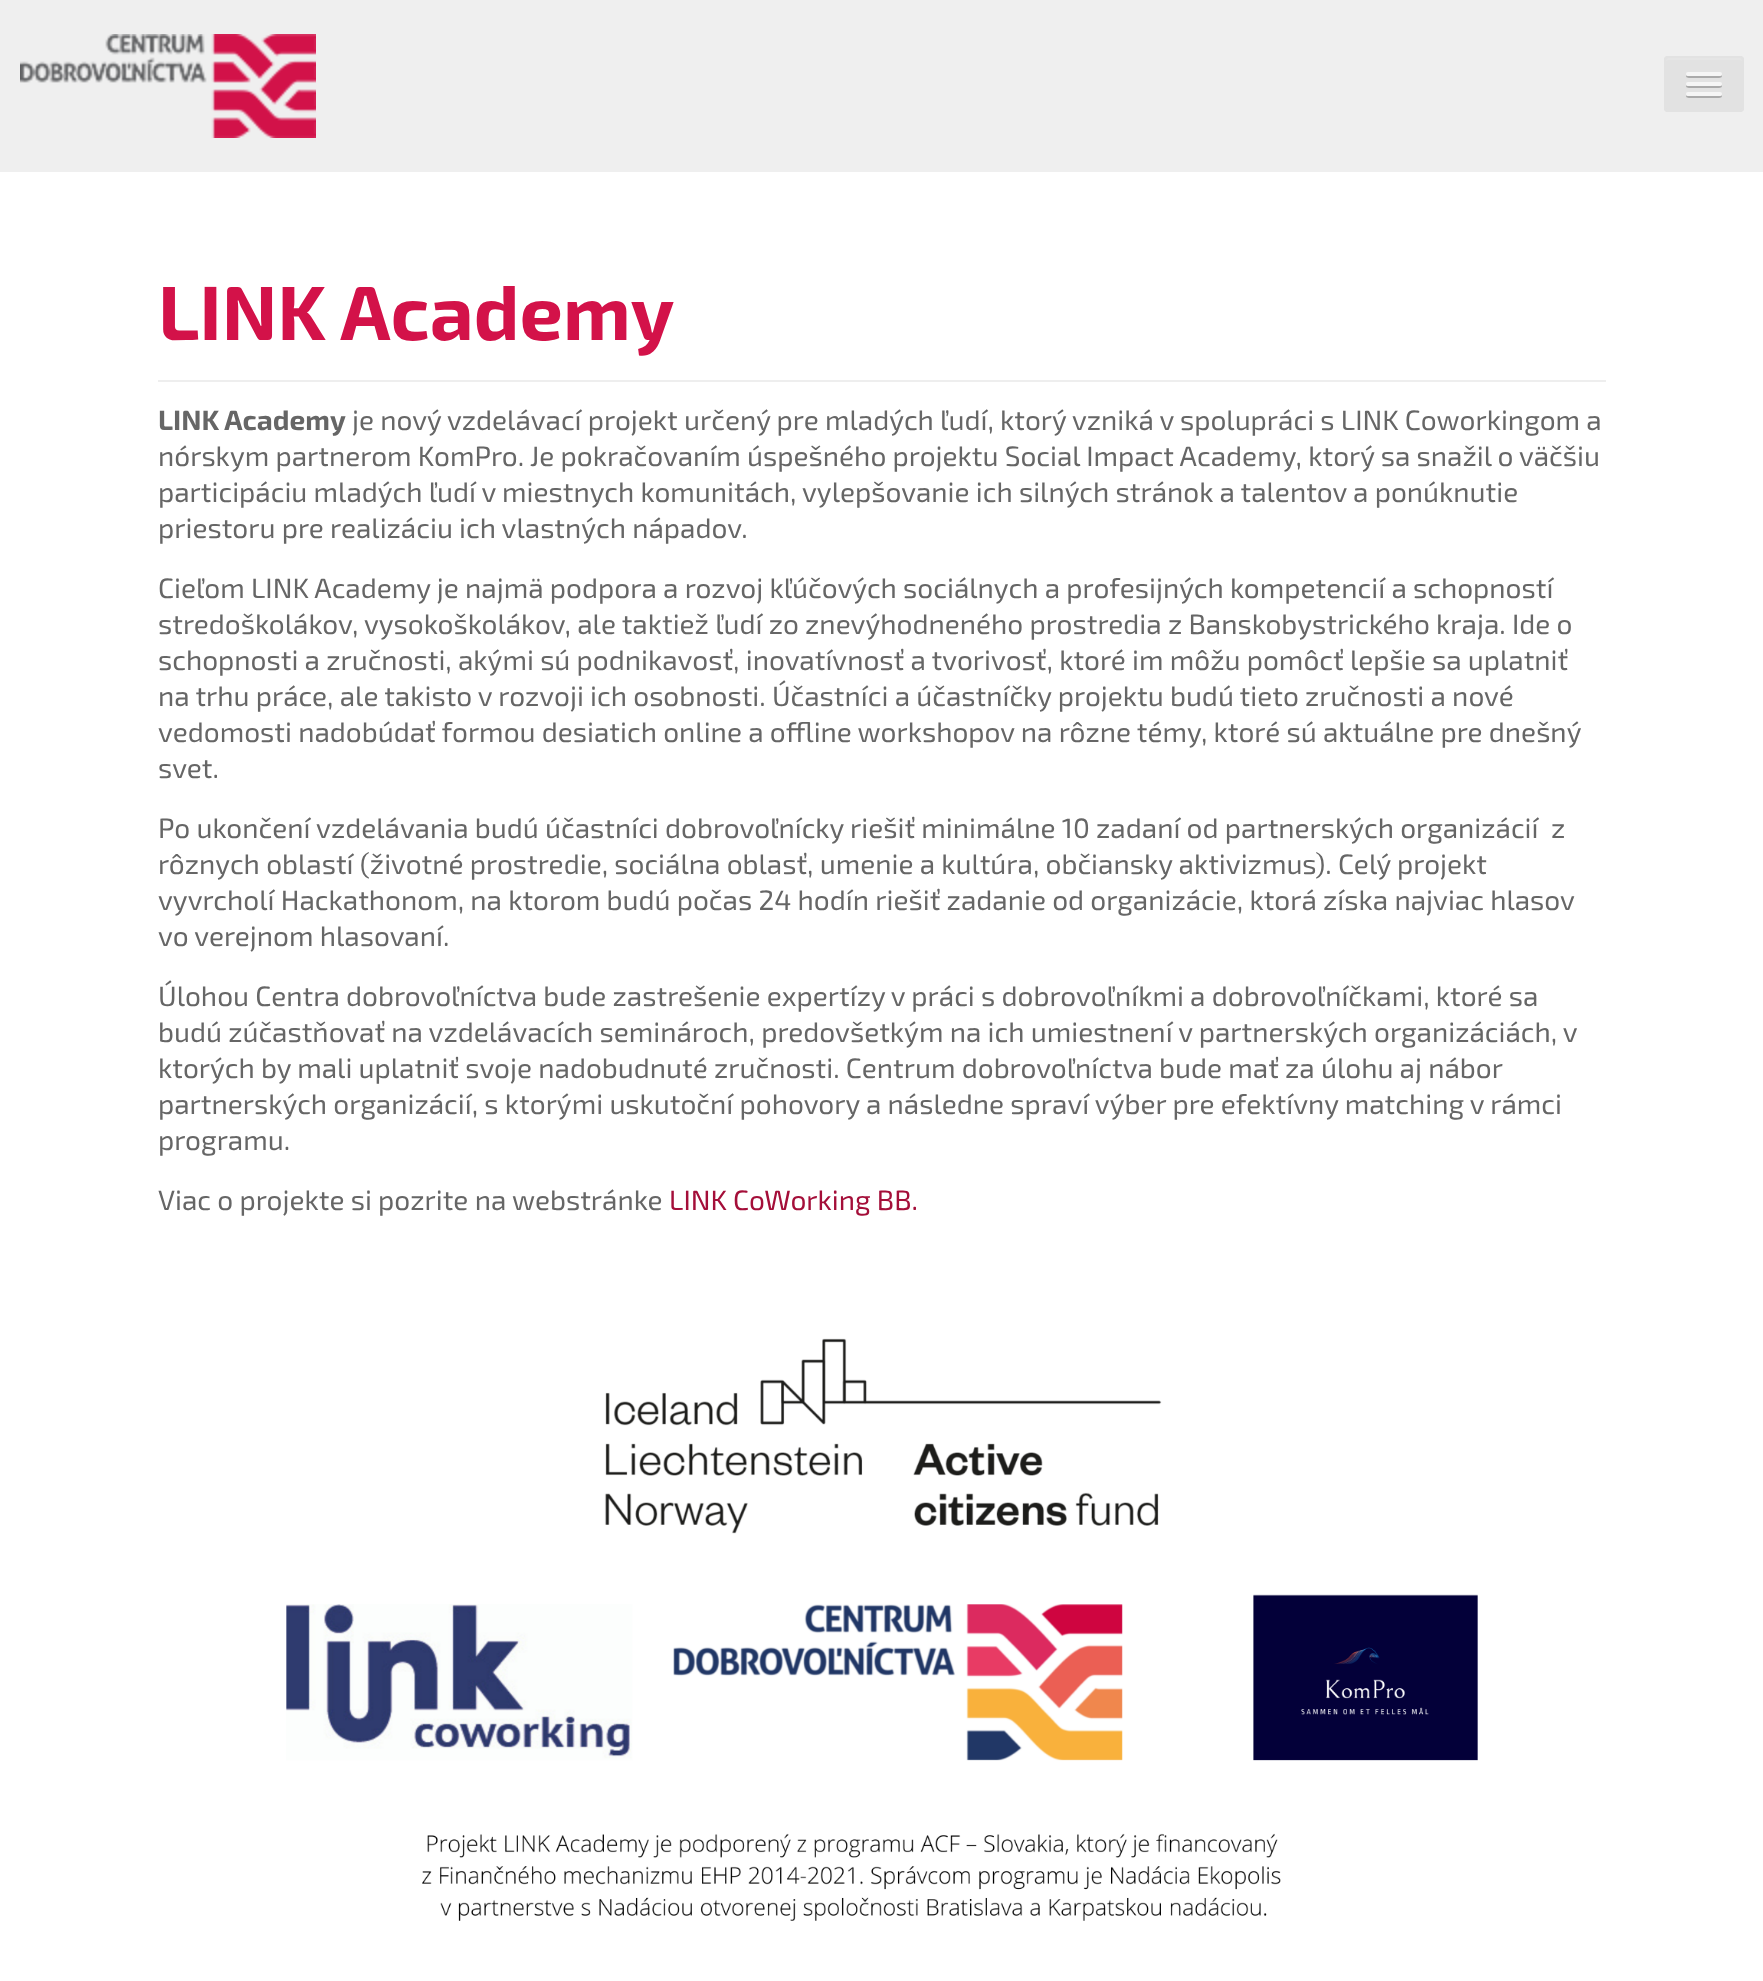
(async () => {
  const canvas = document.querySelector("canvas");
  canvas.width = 1763;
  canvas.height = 1981;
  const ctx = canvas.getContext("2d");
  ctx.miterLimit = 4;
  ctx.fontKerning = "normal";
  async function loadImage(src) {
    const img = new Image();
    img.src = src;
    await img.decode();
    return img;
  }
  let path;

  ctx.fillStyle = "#ffffff";
  ctx.fillRect(0, 0, 1763, 1981);
  ctx.fillStyle = "#efefef";
  ctx.fillRect(0, 0, 1763, 172);
  ctx.drawImage(await loadImage("img/1.png"), 20, 34, 296, 104);
  ctx.fillStyle = "#e2e2e2";
  ctx.beginPath();
  ctx.roundRect(1664, 56, 80, 56, 4);
  ctx.fill();
  ctx.fillStyle = "#e5e5e5";
  path = new Path2D("M1668 60H1740C1741 60 1742 61 1742 62C1742 55 1736 58 1728 58H1680C1672 58 1666 55 1666 62C1666 61 1667 60 1668 60Z");
  ctx.fill(path);
  ctx.beginPath();
  ctx.roundRect(1665, 57, 78, 54, 3);
  ctx.strokeStyle = "#e2e2e2";
  ctx.lineWidth = 2;
  ctx.stroke();
  ctx.fillStyle = "#aaaaaa";
  path = new Path2D("M1686.5 75C1684 79 1693 78 1693.5 78H1714.5C1715 78 1724 79 1721.5 75C1721.5 75.5 1720.5 76 1720 76H1688C1687.5 76 1686.5 75.5 1686.5 75Z");
  ctx.fill(path);
  ctx.fillStyle = "#f5f5f5";
  ctx.beginPath();
  ctx.roundRect(1686, 72, 36, 4, 2);
  ctx.fill();
  ctx.fillStyle = "#aaaaaa";
  path = new Path2D("M1686.5 85C1684 89 1693 88 1693.5 88H1714.5C1715 88 1724 89 1721.5 85C1721.5 85.5 1720.5 86 1720 86H1688C1687.5 86 1686.5 85.5 1686.5 85Z");
  ctx.fill(path);
  ctx.fillStyle = "#f5f5f5";
  ctx.beginPath();
  ctx.roundRect(1686, 82, 36, 4, 2);
  ctx.fill();
  ctx.fillStyle = "#aaaaaa";
  path = new Path2D("M1686.5 95C1684 99 1693 98 1693.5 98H1714.5C1715 98 1724 99 1721.5 95C1721.5 95.5 1720.5 96 1720 96H1688C1687.5 96 1686.5 95.5 1686.5 95Z");
  ctx.fill(path);
  ctx.fillStyle = "#f5f5f5";
  ctx.beginPath();
  ctx.roundRect(1686, 92, 36, 4, 2);
  ctx.fill();
  ctx.fillStyle = "#eeeeee";
  ctx.fillRect(158, 380, 1448, 2);
  ctx.drawImage(await loadImage("img/2.png"), 286, 1338, 1192, 583);
  ctx.font = "bold 77px 'Exo 2'";
  ctx.fillStyle = "#d31249";
  ctx.fillText("LINK Academy", 158, 340);
  ctx.font = "bold 28px 'Exo 2'";
  ctx.fillStyle = "#666666";
  ctx.fillText("LINK Academy", 158, 430);
  ctx.font = "28px 'Exo 2'";
  for (const [text, x, y] of [
    ["je nový vzdelávací projekt určený pre mladých ľudí, ktorý vzniká v spolupráci s LINK Coworkingom a", 352, 430],
    ["nórskym partnerom KomPro. Je pokračovaním úspešného projektu Social Impact Academy, ktorý sa snažil o väčšiu", 158, 466],
    ["participáciu mladých ľudí v miestnych komunitách, vylepšovanie ich silných stránok a talentov a ponúknutie", 158, 502],
    ["priestoru pre realizáciu ich vlastných nápadov.", 158, 538],
    ["Cieľom LINK Academy je najmä podpora a rozvoj kľúčových sociálnych a profesijných kompetencií a schopností", 158, 598],
    ["stredoškolákov, vysokoškolákov, ale taktiež ľudí zo znevýhodneného prostredia z Banskobystrického kraja. Ide o", 158, 634],
    ["schopnosti a zručnosti, akými sú podnikavosť, inovatívnosť a tvorivosť, ktoré im môžu pomôcť lepšie sa uplatniť", 158, 670],
    ["na trhu práce, ale takisto v rozvoji ich osobnosti. Účastníci a účastníčky projektu budú tieto zručnosti a nové", 158, 706],
    ["vedomosti nadobúdať formou desiatich online a offline workshopov na rôzne témy, ktoré sú aktuálne pre dnešný", 158, 742],
    ["svet.", 158, 778],
    ["Po ukončení vzdelávania budú účastníci dobrovoľnícky riešiť minimálne 10 zadaní od partnerských organizácií  z", 158, 838],
    ["rôznych oblastí (životné prostredie, sociálna oblasť, umenie a kultúra, občiansky aktivizmus). Celý projekt", 158, 874],
    ["vyvrcholí Hackathonom, na ktorom budú počas 24 hodín riešiť zadanie od organizácie, ktorá získa najviac hlasov", 158, 910],
    ["vo verejnom hlasovaní.", 158, 946],
    ["Úlohou Centra dobrovoľníctva bude zastrešenie expertízy v práci s dobrovoľníkmi a dobrovoľníčkami, ktoré sa", 158, 1006],
    ["budú zúčastňovať na vzdelávacích seminároch, predovšetkým na ich umiestnení v partnerských organizáciách, v", 158, 1042],
    ["ktorých by mali uplatniť svoje nadobudnuté zručnosti. Centrum dobrovoľníctva bude mať za úlohu aj nábor", 158, 1078],
    ["partnerských organizácií, s ktorými uskutoční pohovory a následne spraví výber pre efektívny matching v rámci", 158, 1114],
    ["programu.", 158, 1150],
    ["Viac o projekte si pozrite na webstránke", 158, 1210],
  ]) {
    ctx.fillText(text, x, y);
  }
  ctx.fillStyle = "#a40e39";
  ctx.fillText("LINK CoWorking BB.", 669, 1210);
})();
